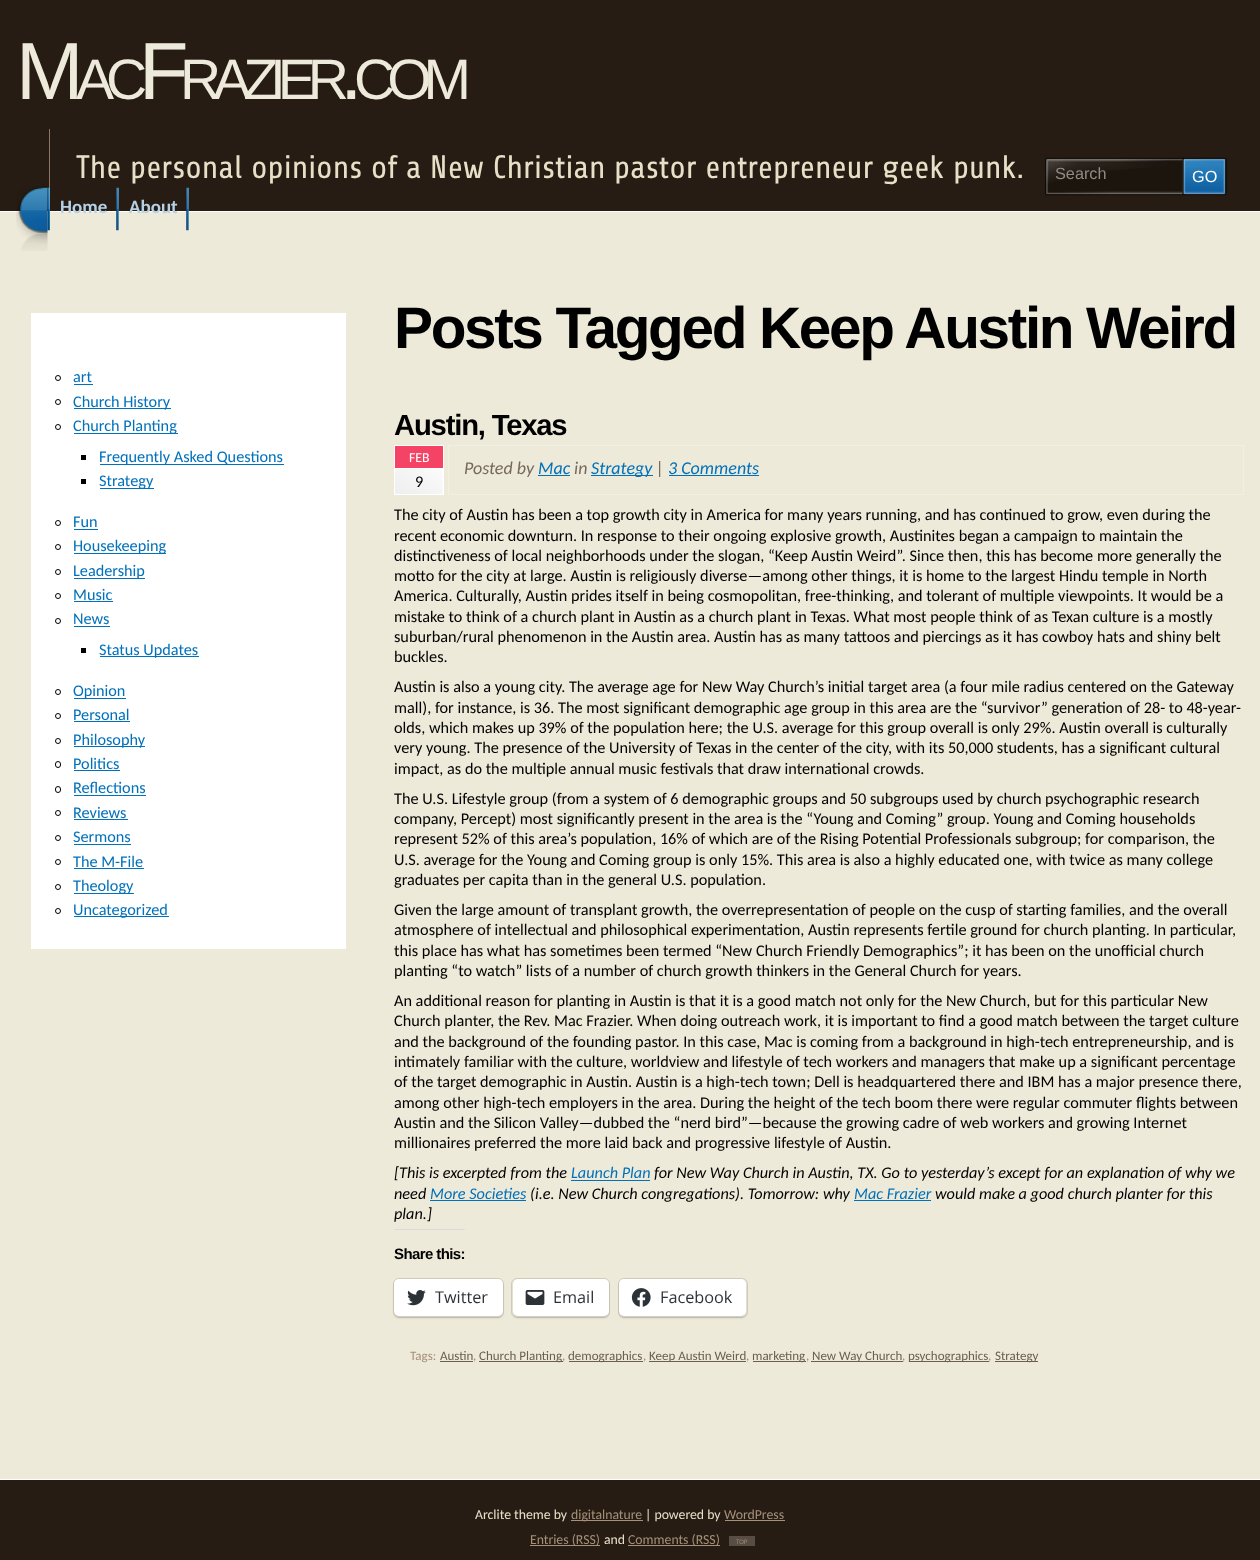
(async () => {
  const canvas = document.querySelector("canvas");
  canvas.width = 1260;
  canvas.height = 1560;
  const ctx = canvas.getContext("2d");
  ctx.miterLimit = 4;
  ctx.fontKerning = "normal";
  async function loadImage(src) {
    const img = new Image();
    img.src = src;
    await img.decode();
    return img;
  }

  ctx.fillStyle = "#261c13";
  ctx.fillRect(0, 0, 1260, 1560);
  ctx.fillStyle = "#8e7762";
  ctx.fillRect(49, 129, 1, 59);
  ctx.drawImage(await loadImage("img/1.png"), 1045, 157, 138, 39);
  ctx.drawImage(await loadImage("img/2.png"), 1182, 157, 46, 39);
  ctx.fillStyle = "#eeead9";
  ctx.fillRect(0, 212, 1260, 1267);
  ctx.fillStyle = "#ffffff";
  ctx.fillRect(0, 211, 1260, 1);
  ctx.drawImage(await loadImage("img/3.png"), 16, 186, 32, 65);
  ctx.drawImage(await loadImage("img/4.png"), 186, 187, 3, 44);
  ctx.drawImage(await loadImage("img/5.png"), 47, 187, 3, 44);
  ctx.drawImage(await loadImage("img/4.png"), 116, 187, 3, 44);
  ctx.fillRect(31, 313, 315, 636);
  ctx.beginPath();
  ctx.arc(58, 378, 2.5, 0, Math.PI * 2);
  ctx.strokeStyle = "#000000";
  ctx.stroke();
  ctx.fillStyle = "#0071bb";
  ctx.fillRect(74, 384, 19, 1);
  ctx.beginPath();
  ctx.arc(58, 402, 2.5, 0, Math.PI * 2);
  ctx.stroke();
  ctx.fillRect(74, 408, 97, 1);
  ctx.beginPath();
  ctx.arc(58, 427, 2.5, 0, Math.PI * 2);
  ctx.stroke();
  for (const [x, y, w, h, color] of [
    [74, 433, 104, 1, "#0071bb"],
    [81, 455, 5, 5, "#000000"],
    [100, 464, 184, 1, "#0071bb"],
    [81, 479, 5, 5, "#000000"],
    [100, 488, 54, 1, "#0071bb"],
  ]) {
    ctx.fillStyle = color;
    ctx.fillRect(x, y, w, h);
  }
  ctx.beginPath();
  ctx.arc(58, 523, 2.5, 0, Math.PI * 2);
  ctx.stroke();
  ctx.fillRect(74, 529, 24, 1);
  ctx.beginPath();
  ctx.arc(58, 547, 2.5, 0, Math.PI * 2);
  ctx.stroke();
  ctx.fillRect(74, 553, 92, 1);
  ctx.beginPath();
  ctx.arc(58, 572, 2.5, 0, Math.PI * 2);
  ctx.stroke();
  ctx.fillRect(74, 578, 71, 1);
  ctx.beginPath();
  ctx.arc(58, 596, 2.5, 0, Math.PI * 2);
  ctx.stroke();
  ctx.fillRect(74, 601, 39, 1);
  ctx.beginPath();
  ctx.arc(58, 621, 2.5, 0, Math.PI * 2);
  ctx.stroke();
  for (const [x, y, w, h, color] of [
    [74, 626, 36, 1, "#0071bb"],
    [81, 648, 5, 5, "#000000"],
    [100, 656, 99, 1, "#0071bb"],
  ]) {
    ctx.fillStyle = color;
    ctx.fillRect(x, y, w, h);
  }
  ctx.beginPath();
  ctx.arc(58, 692, 2.5, 0, Math.PI * 2);
  ctx.stroke();
  ctx.fillRect(74, 698, 52, 1);
  ctx.beginPath();
  ctx.arc(58, 716, 2.5, 0, Math.PI * 2);
  ctx.stroke();
  ctx.fillRect(74, 721, 56, 1);
  ctx.beginPath();
  ctx.arc(58, 741, 2.5, 0, Math.PI * 2);
  ctx.stroke();
  ctx.fillRect(74, 746, 71, 1);
  ctx.beginPath();
  ctx.roundRect(55.5, 761.5, 5, 6, 2.5);
  ctx.stroke();
  ctx.fillRect(74, 770, 46, 1);
  ctx.beginPath();
  ctx.roundRect(55.5, 786.5, 5, 6, 2.5);
  ctx.stroke();
  ctx.fillRect(74, 795, 72, 1);
  ctx.beginPath();
  ctx.arc(58, 813, 2.5, 0, Math.PI * 2);
  ctx.stroke();
  ctx.fillRect(74, 819, 54, 1);
  ctx.beginPath();
  ctx.arc(58, 838, 2.5, 0, Math.PI * 2);
  ctx.stroke();
  ctx.fillRect(74, 844, 57, 1);
  ctx.beginPath();
  ctx.arc(58, 862, 2.5, 0, Math.PI * 2);
  ctx.stroke();
  ctx.fillRect(74, 868, 70, 1);
  ctx.beginPath();
  ctx.arc(58, 887, 2.5, 0, Math.PI * 2);
  ctx.stroke();
  ctx.fillRect(74, 893, 60, 1);
  ctx.beginPath();
  ctx.arc(58, 911, 2.5, 0, Math.PI * 2);
  ctx.stroke();
  ctx.fillRect(74, 916, 95, 1);
  ctx.fillStyle = "#ffffff";
  ctx.fillRect(394, 445, 50, 50);
  ctx.drawImage(await loadImage("img/6.png"), 395, 469, 48, 25);
  ctx.fillStyle = "#f44365";
  ctx.fillRect(395, 446, 48, 22);
  ctx.strokeStyle = "#f2efe5";
  ctx.strokeRect(448.5, 445.5, 795, 49);
  for (const [x, y, w, h, color] of [
    [538, 475, 32, 1, "#0071bb"],
    [591, 475, 62, 1, "#0071bb"],
    [669, 475, 90, 1, "#0071bb"],
    [571, 1180, 79, 1, "#0071bb"],
    [430, 1200, 96, 1, "#0071bb"],
    [854, 1200, 77, 1, "#0071bb"],
    [394, 1229, 71, 1, "#dcdcde"],
  ]) {
    ctx.fillStyle = color;
    ctx.fillRect(x, y, w, h);
  }
  ctx.beginPath();
  ctx.roundRect(393.5, 1278.5, 110, 39, 5.5);
  ctx.strokeStyle = "#d1cebf";
  ctx.stroke();
  ctx.fillStyle = "rgba(0, 0, 0, 0.12)";
  ctx.filter = "blur(1px)";
  ctx.beginPath();
  ctx.roundRect(394, 1280, 109, 38, 5);
  ctx.fill();
  ctx.filter = "none";
  ctx.fillStyle = "#ffffff";
  ctx.beginPath();
  ctx.roundRect(394, 1279, 109, 37, 5);
  ctx.fill();
  ctx.drawImage(await loadImage("img/7.png"), 407, 1290, 19, 16);
  ctx.beginPath();
  ctx.roundRect(511.5, 1278.5, 98, 39, 5.5);
  ctx.stroke();
  ctx.fillStyle = "rgba(0, 0, 0, 0.12)";
  ctx.filter = "blur(1px)";
  ctx.beginPath();
  ctx.roundRect(513, 1280, 96, 38, 5);
  ctx.fill();
  ctx.filter = "none";
  ctx.fillStyle = "#ffffff";
  ctx.beginPath();
  ctx.roundRect(513, 1279, 96, 37, 5);
  ctx.fill();
  ctx.drawImage(await loadImage("img/8.png"), 525, 1290, 20, 15);
  ctx.beginPath();
  ctx.roundRect(618.5, 1278.5, 129, 39, 5.5);
  ctx.stroke();
  ctx.fillStyle = "rgba(0, 0, 0, 0.12)";
  ctx.filter = "blur(1px)";
  ctx.beginPath();
  ctx.roundRect(619, 1280, 127, 38, 5);
  ctx.fill();
  ctx.filter = "none";
  ctx.fillStyle = "#ffffff";
  ctx.beginPath();
  ctx.roundRect(619, 1279, 127, 37, 5);
  ctx.fill();
  ctx.drawImage(await loadImage("img/9.png"), 631, 1288, 20, 19);
  for (const [x, y, w, h, color] of [
    [440, 1361, 33, 1, "#6b5e50"],
    [479, 1361, 84, 1, "#6b5e50"],
    [569, 1361, 74, 1, "#6b5e50"],
    [649, 1361, 97, 1, "#6b5e50"],
    [753, 1361, 53, 1, "#6b5e50"],
    [811, 1361, 92, 1, "#6b5e50"],
    [909, 1361, 80, 1, "#6b5e50"],
    [995, 1361, 43, 1, "#6b5e50"],
    [0, 1479, 1260, 1, "#ffffff"],
    [571, 1520, 72, 1, "#a59079"],
    [725, 1520, 60, 1, "#a59079"],
    [530, 1545, 70, 1, "#a59079"],
    [628, 1545, 92, 1, "#a59079"],
    [729, 1536, 26, 10, "#584d43"],
  ]) {
    ctx.fillStyle = color;
    ctx.fillRect(x, y, w, h);
  }
  ctx.letterSpacing = "-8px";
  ctx.font = "81px Liberation Sans";
  ctx.fillStyle = "#eeeadb";
  ctx.fillText("M", 16, 99);
  ctx.font = "57px Liberation Sans";
  ctx.fillText("AC", 76, 99);
  ctx.font = "81px Liberation Sans";
  ctx.fillText("F", 139, 99);
  ctx.font = "57px Liberation Sans";
  ctx.fillText("RAZIER", 180, 99);
  ctx.font = "81px Liberation Sans";
  ctx.fillText(".", 340, 99);
  ctx.font = "57px Liberation Sans";
  ctx.fillText("COM", 354, 99);
  ctx.letterSpacing = "0px";
  ctx.font = "32.5px Share";
  ctx.fillStyle = "#e7e0c7";
  ctx.fillText("The personal opinions of a New Christian pastor entrepreneur geek punk.", 76, 178);
  ctx.font = "16.25px Liberation Sans";
  ctx.fillStyle = "#928a85";
  ctx.fillText("Search", 1055, 179);
  ctx.fillStyle = "#ffffff";
  ctx.fillText("GO", 1192, 182);
  ctx.font = "bold 19px Carlito";
  ctx.fillStyle = "#b5d1e6";
  ctx.fillText("Home", 60, 213);
  ctx.fillText("About", 129, 213);
  ctx.font = "16.25px Carlito";
  ctx.fillStyle = "#0071bb";
  for (const [text, x, y] of [
    ["art", 73, 382],
    ["Church History", 73, 407],
    ["Church Planting", 73, 431],
    ["Frequently Asked Questions", 99, 462],
    ["Strategy", 99, 486],
    ["Fun", 73, 527],
    ["Housekeeping", 73, 551],
    ["Leadership", 73, 576],
    ["Music", 73, 600],
    ["News", 73, 624],
    ["Status Updates", 99, 655],
    ["Opinion", 73, 696],
    ["Personal", 73, 720],
    ["Philosophy", 73, 745],
    ["Politics", 73, 769],
    ["Reflections", 73, 793],
    ["Reviews", 73, 818],
    ["Sermons", 73, 842],
    ["The M-File", 73, 867],
    ["Theology", 73, 891],
    ["Uncategorized", 73, 915],
  ]) {
    ctx.fillText(text, x, y);
  }
  ctx.letterSpacing = "-2.35px";
  ctx.font = "bold 58.5px Liberation Sans";
  ctx.fillStyle = "#000000";
  ctx.fillText("Posts Tagged Keep Austin Weird", 394, 348);
  ctx.letterSpacing = "-1.2px";
  ctx.font = "bold 29.25px Liberation Sans";
  ctx.fillText("Austin, Texas", 394, 435);
  ctx.letterSpacing = "0px";
  ctx.font = "13.75px Carlito";
  ctx.fillStyle = "#ffffff";
  ctx.fillText("FEB", 409, 462);
  ctx.font = "16.25px Carlito";
  ctx.fillStyle = "#000000";
  ctx.fillText("9", 415, 487);
  ctx.font = "italic 18px Carlito";
  ctx.fillStyle = "#75695e";
  ctx.fillText("Posted by", 464, 474);
  ctx.fillStyle = "#0071bb";
  ctx.fillText("Mac", 538, 474);
  ctx.fillStyle = "#75695e";
  ctx.fillText("in", 574, 474);
  ctx.fillStyle = "#0071bb";
  ctx.fillText("Strategy", 591, 474);
  ctx.fillStyle = "#75695e";
  ctx.fillText("|", 656, 474);
  ctx.fillStyle = "#0071bb";
  ctx.fillText("3 Comments", 668, 474);
  ctx.font = "16.25px Carlito";
  ctx.fillStyle = "#000000";
  for (const [text, x, y] of [
    ["The city of Austin has been a top growth city in America for many years running, and has continued to grow, even during the", 394, 520],
    ["recent economic downturn. In response to their ongoing explosive growth, Austinites began a campaign to maintain the", 394, 541],
    ["distinctiveness of local neighborhoods under the slogan, “Keep Austin Weird”. Since then, this has become more generally the", 394, 561],
    ["motto for the city at large. Austin is religiously diverse—among other things, it is home to the largest Hindu temple in North", 394, 581],
    ["America. Culturally, Austin prides itself in being cosmopolitan, free-thinking, and tolerant of multiple viewpoints. It would be a", 394, 601],
    ["mistake to think of a church plant in Austin as a church plant in Texas. What most people think of as Texan culture is a mostly", 394, 622],
    ["suburban/rural phenomenon in the Austin area. Austin has as many tattoos and piercings as it has cowboy hats and shiny belt", 394, 642],
    ["buckles.", 394, 662],
    ["Austin is also a young city. The average age for New Way Church’s initial target area (a four mile radius centered on the Gateway", 394, 692],
    ["mall), for instance, is 36. The most significant demographic age group in this area are the “survivor” generation of 28- to 48-year-", 394, 713],
    ["olds, which makes up 39% of the population here; the U.S. average for this group overall is only 29%. Austin overall is culturally", 394, 733],
    ["very young. The presence of the University of Texas in the center of the city, with its 50,000 students, has a significant cultural", 394, 753],
    ["impact, as do the multiple annual music festivals that draw international crowds.", 394, 774],
    ["The U.S. Lifestyle group (from a system of 6 demographic groups and 50 subgroups used by church psychographic research", 394, 804],
    ["company, Percept) most significantly present in the area is the “Young and Coming” group. Young and Coming households", 394, 824],
    ["represent 52% of this area’s population, 16% of which are of the Rising Potential Professionals subgroup; for comparison, the", 394, 844],
    ["U.S. average for the Young and Coming group is only 15%. This area is also a highly educated one, with twice as many college", 394, 865],
    ["graduates per capita than in the general U.S. population.", 394, 885],
    ["Given the large amount of transplant growth, the overrepresentation of people on the cusp of starting families, and the overall", 394, 915],
    ["atmosphere of intellectual and philosophical experimentation, Austin represents fertile ground for church planting. In particular,", 394, 935],
    ["this place has what has sometimes been termed “New Church Friendly Demographics”; it has been on the unofficial church", 394, 956],
    ["planting “to watch” lists of a number of church growth thinkers in the General Church for years.", 394, 976],
    ["An additional reason for planting in Austin is that it is a good match not only for the New Church, but for this particular New", 394, 1006],
    ["Church planter, the Rev. Mac Frazier. When doing outreach work, it is important to find a good match between the target culture", 394, 1026],
    ["and the background of the founding pastor. In this case, Mac is coming from a background in high-tech entrepreneurship, and is", 394, 1047],
    ["intimately familiar with the culture, worldview and lifestyle of tech workers and managers that make up a significant percentage", 394, 1067],
    ["of the target demographic in Austin. Austin is a high-tech town; Dell is headquartered there and IBM has a major presence there,", 394, 1087],
    ["among other high-tech employers in the area. During the height of the tech boom there were regular commuter flights between", 394, 1108],
    ["Austin and the Silicon Valley—dubbed the “nerd bird”—because the growing cadre of web workers and growing Internet", 394, 1128],
    ["millionaires preferred the more laid back and progressive lifestyle of Austin.", 394, 1148],
  ]) {
    ctx.fillText(text, x, y);
  }
  ctx.font = "italic 16.25px Carlito";
  ctx.fillText("[This is excerpted from the", 394, 1178);
  ctx.fillStyle = "#0071bb";
  ctx.fillText("Launch Plan", 571, 1178);
  ctx.fillStyle = "#000000";
  ctx.fillText("for New Way Church in Austin, TX. Go to yesterday’s except for an explanation of why we", 654, 1178);
  ctx.fillText("need", 394, 1199);
  ctx.fillStyle = "#0071bb";
  ctx.fillText("More Societies", 430, 1199);
  ctx.fillStyle = "#000000";
  ctx.fillText("(i.e. New Church congregations). Tomorrow: why", 530, 1199);
  ctx.fillStyle = "#0071bb";
  ctx.fillText("Mac Frazier", 854, 1199);
  ctx.fillStyle = "#000000";
  ctx.fillText("would make a good church planter for this", 935, 1199);
  ctx.fillText("plan.]", 394, 1219);
  ctx.letterSpacing = "-0.6px";
  ctx.font = "bold 15px Liberation Sans";
  ctx.fillText("Share this:", 394, 1259);
  ctx.letterSpacing = "0px";
  ctx.font = "16.25px Open Sans";
  ctx.fillStyle = "#2c3338";
  for (const [text, x, y] of [
    ["Twitter", 435, 1303],
    ["Email", 553, 1303],
    ["Facebook", 660, 1303],
  ]) {
    ctx.fillText(text, x, y);
  }
  ctx.font = "13px Carlito";
  ctx.fillStyle = "#a59079";
  ctx.fillText("Tags:", 410, 1360);
  ctx.fillStyle = "#6b5e50";
  ctx.fillText("Austin", 440, 1360);
  ctx.fillStyle = "#a59079";
  ctx.fillText(",", 473, 1360);
  ctx.fillStyle = "#6b5e50";
  ctx.fillText("Church Planting", 479, 1360);
  ctx.fillStyle = "#a59079";
  ctx.fillText(",", 562, 1360);
  ctx.fillStyle = "#6b5e50";
  ctx.fillText("demographics", 568, 1360);
  ctx.fillStyle = "#a59079";
  ctx.fillText(",", 643, 1360);
  ctx.fillStyle = "#6b5e50";
  ctx.fillText("Keep Austin Weird", 649, 1360);
  ctx.fillStyle = "#a59079";
  ctx.fillText(",", 746, 1360);
  ctx.fillStyle = "#6b5e50";
  ctx.fillText("marketing", 752, 1360);
  ctx.fillStyle = "#a59079";
  ctx.fillText(",", 806, 1360);
  ctx.fillStyle = "#6b5e50";
  ctx.fillText("New Way Church", 812, 1360);
  ctx.fillStyle = "#a59079";
  ctx.fillText(",", 902, 1360);
  ctx.fillStyle = "#6b5e50";
  ctx.fillText("psychographics", 908, 1360);
  ctx.fillStyle = "#a59079";
  ctx.fillText(",", 988, 1360);
  ctx.fillStyle = "#6b5e50";
  ctx.fillText("Strategy", 995, 1360);
  ctx.font = "13.75px Carlito";
  ctx.fillStyle = "#e7e0c7";
  ctx.fillText("Arclite theme by", 475, 1519);
  ctx.fillStyle = "#a59079";
  ctx.fillText("digitalnature", 571, 1519);
  ctx.fillStyle = "#e7e0c7";
  ctx.fillText("| powered by", 645, 1519);
  ctx.fillStyle = "#a59079";
  ctx.fillText("WordPress", 724, 1519);
  ctx.fillText("Entries (RSS)", 530, 1544);
  ctx.fillStyle = "#e7e0c7";
  ctx.fillText("and", 604, 1544);
  ctx.fillStyle = "#a59079";
  ctx.fillText("Comments (RSS)", 628, 1544);
  ctx.font = "7px Carlito";
  ctx.fillStyle = "#9b856f";
  ctx.fillText("TOP", 736, 1544);
})();
